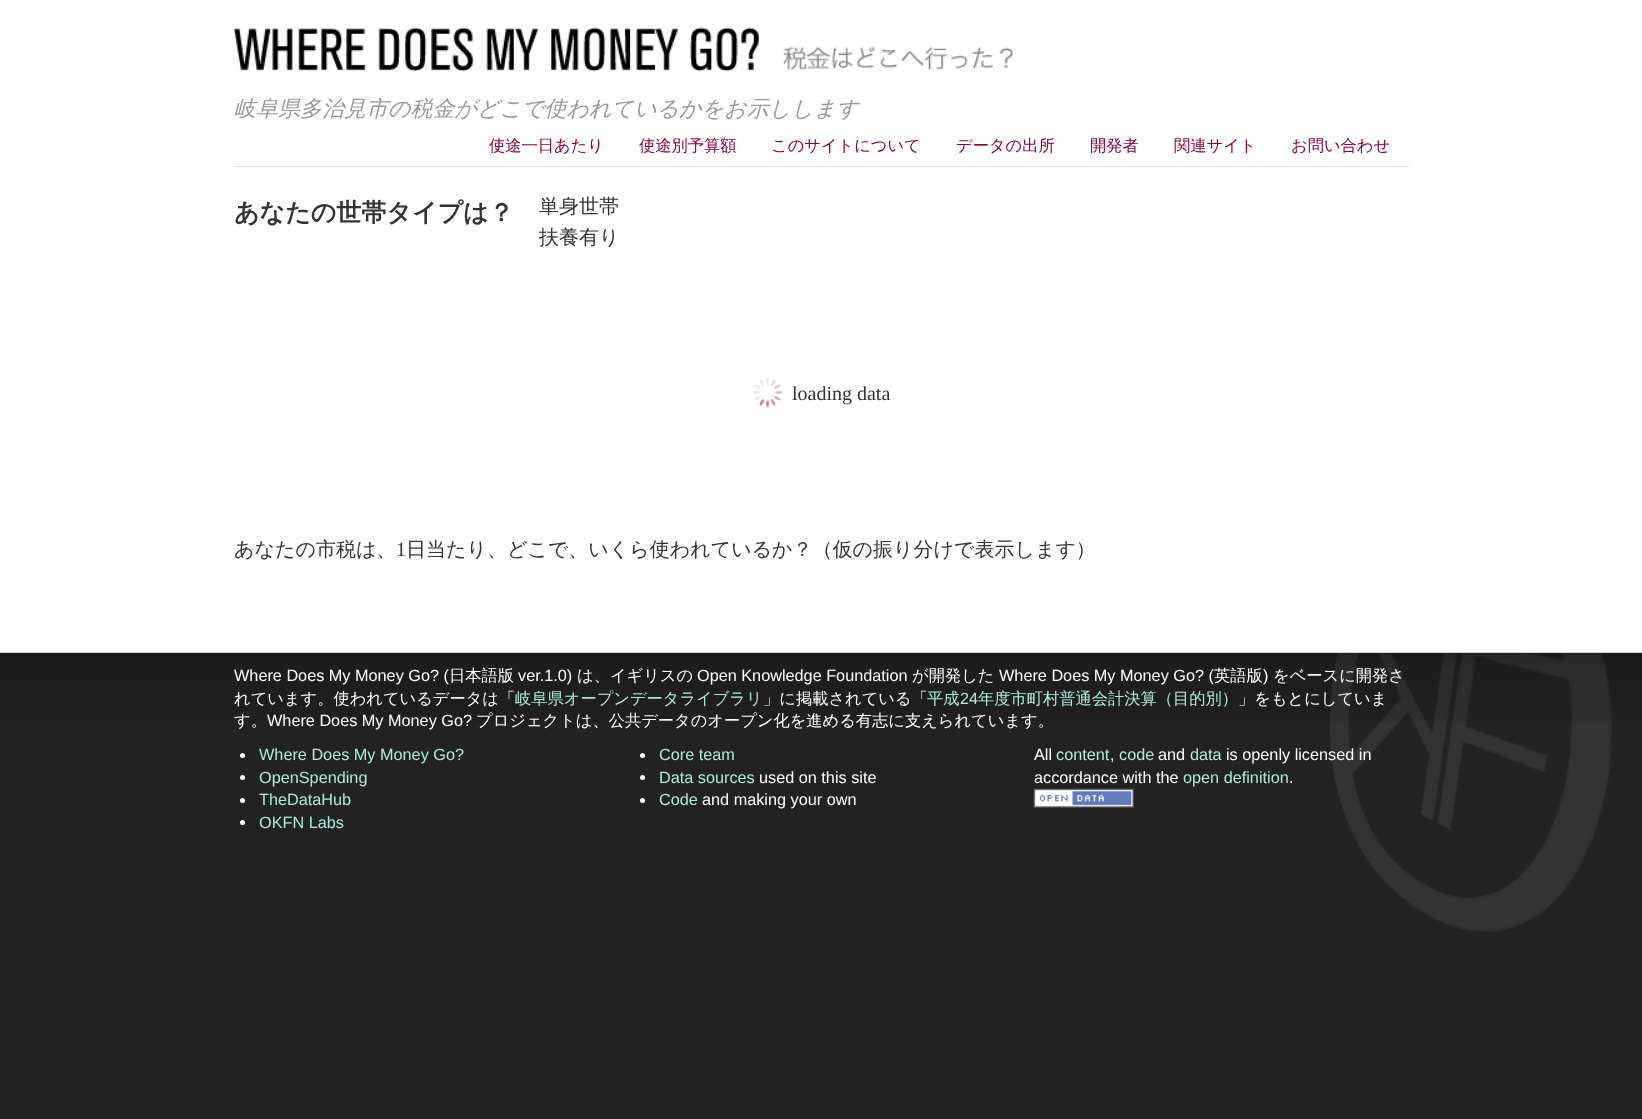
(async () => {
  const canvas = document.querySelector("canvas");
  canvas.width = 1642;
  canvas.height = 1119;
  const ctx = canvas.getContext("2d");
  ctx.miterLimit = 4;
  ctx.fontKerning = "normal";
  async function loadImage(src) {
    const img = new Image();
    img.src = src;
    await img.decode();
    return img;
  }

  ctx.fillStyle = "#222222";
  ctx.fillRect(0, 0, 1642, 1119);
  ctx.fillStyle = "#ffffff";
  ctx.fillRect(0, 0, 1642, 653);
  ctx.drawImage(await loadImage("img/1.png"), 233, 27, 780, 45);
  ctx.fillStyle = "#dddddd";
  ctx.fillRect(234, 166, 1175, 1);
  ctx.drawImage(await loadImage("img/2.png"), 752, 377, 31, 31);
  ctx.drawImage(await loadImage("img/3.png"), 1330, 653, 282, 279);
  ctx.drawImage(await loadImage("img/4.png"), 0, 652, 1642, 69);
  ctx.fillStyle = "#ffffff";
  ctx.beginPath();
  ctx.arc(242.5, 755.5, 2.5, 0, Math.PI * 2);
  ctx.fill();
  ctx.beginPath();
  ctx.arc(242.5, 777.5, 2.5, 0, Math.PI * 2);
  ctx.fill();
  ctx.beginPath();
  ctx.arc(242.5, 800.5, 2.5, 0, Math.PI * 2);
  ctx.fill();
  ctx.beginPath();
  ctx.arc(242.5, 822.5, 2.5, 0, Math.PI * 2);
  ctx.fill();
  ctx.beginPath();
  ctx.arc(642.5, 755.5, 2.5, 0, Math.PI * 2);
  ctx.fill();
  ctx.beginPath();
  ctx.arc(642.5, 777.5, 2.5, 0, Math.PI * 2);
  ctx.fill();
  ctx.beginPath();
  ctx.arc(642.5, 800.5, 2.5, 0, Math.PI * 2);
  ctx.fill();
  ctx.drawImage(await loadImage("img/5.png"), 1033, 788, 101, 20);
  ctx.font = "italic 500 22px WenQuanYi Zen Hei";
  ctx.fillStyle = "#999999";
  ctx.fillText("岐阜県多治見市の税金がどこで使われているかをお示しします", 234, 116);
  ctx.font = "500 16.25px WenQuanYi Zen Hei";
  ctx.fillStyle = "#830242";
  for (const [text, x, y] of [
    ["使途一日あたり", 489, 151],
    ["使途別予算額", 639, 151],
    ["このサイトについて", 771, 151],
    ["データの出所", 956, 151],
    ["開発者", 1090, 151],
    ["関連サイト", 1174, 151],
    ["お問い合わせ", 1291, 151],
  ]) {
    ctx.fillText(text, x, y);
  }
  ctx.font = "bold 25px WenQuanYi Zen Hei";
  ctx.fillStyle = "#333333";
  ctx.fillText("あなたの世帯タイプは？", 234, 221);
  ctx.font = "500 20px WenQuanYi Zen Hei";
  ctx.fillText("単身世帯", 539, 213);
  ctx.fillText("扶養有り", 539, 244);
  ctx.font = "20px Liberation Serif";
  ctx.fillText("loading data", 792, 400);
  ctx.font = "500 20px WenQuanYi Zen Hei";
  ctx.fillText("あなたの市税は、", 234, 556);
  ctx.font = "20px Liberation Serif";
  ctx.fillText("1", 396, 556);
  ctx.font = "500 20px WenQuanYi Zen Hei";
  ctx.fillText("日当たり、どこで、いくら使われているか？（仮の振り分けで表示します）", 406, 556);
  ctx.font = "16.25px Liberation Sans";
  ctx.fillStyle = "#ffffff";
  ctx.fillText("Where Does My Money Go? (", 234, 681);
  ctx.font = "500 16.25px WenQuanYi Zen Hei";
  ctx.fillText("日本語版", 449, 681);
  ctx.font = "16.25px Liberation Sans";
  ctx.fillText("ver.1.0)", 518, 681);
  ctx.font = "500 16.25px WenQuanYi Zen Hei";
  ctx.fillText("は、イギリスの", 577, 681);
  ctx.font = "16.25px Liberation Sans";
  ctx.fillText("Open Knowledge Foundation", 697, 681);
  ctx.font = "500 16.25px WenQuanYi Zen Hei";
  ctx.fillText("が開発した", 912, 681);
  ctx.font = "16.25px Liberation Sans";
  ctx.fillText("Where Does My Money Go? (", 999, 681);
  ctx.font = "500 16.25px WenQuanYi Zen Hei";
  ctx.fillText("英語版", 1214, 681);
  ctx.font = "16.25px Liberation Sans";
  ctx.fillText(")", 1263, 681);
  ctx.font = "500 16.25px WenQuanYi Zen Hei";
  ctx.fillText("をベースに開発さ", 1273, 681);
  ctx.fillText("れています。使われているデータは「", 234, 704);
  ctx.fillStyle = "#aeebdf";
  ctx.fillText("岐阜県オープンデータライブラリ", 515, 704);
  ctx.fillStyle = "#ffffff";
  ctx.fillText("」に掲載されている「", 763, 704);
  ctx.fillStyle = "#aeebdf";
  ctx.fillText("平成", 927, 704);
  ctx.font = "16.25px Liberation Sans";
  ctx.fillText("24", 960, 704);
  ctx.font = "500 16.25px WenQuanYi Zen Hei";
  ctx.fillText("年度市町村普通会計決算（目的別）", 978, 704);
  ctx.fillStyle = "#ffffff";
  ctx.fillText("」をもとにしていま", 1238, 704);
  ctx.fillText("す。", 234, 726);
  ctx.font = "16.25px Liberation Sans";
  ctx.fillText("Where Does My Money Go?", 267, 726);
  ctx.font = "500 16.25px WenQuanYi Zen Hei";
  ctx.fillText("プロジェクトは、公共データのオープン化を進める有志に支えられています。", 476, 726);
  ctx.font = "16.25px Liberation Sans";
  ctx.fillStyle = "#aeebdf";
  for (const [text, x, y] of [
    ["Where Does My Money Go?", 259, 760],
    ["OpenSpending", 259, 783],
    ["TheDataHub", 259, 805],
    ["OKFN Labs", 259, 828],
    ["Core team", 659, 760],
    ["Data sources", 659, 783],
  ]) {
    ctx.fillText(text, x, y);
  }
  ctx.fillStyle = "#ffffff";
  ctx.fillText("used on this site", 759, 783);
  ctx.fillStyle = "#aeebdf";
  ctx.fillText("Code", 659, 805);
  ctx.fillStyle = "#ffffff";
  ctx.fillText("and making your own", 702, 805);
  ctx.fillText("All", 1034, 760);
  ctx.fillStyle = "#aeebdf";
  ctx.fillText("content", 1056, 760);
  ctx.fillStyle = "#ffffff";
  ctx.fillText(",", 1110, 760);
  ctx.fillStyle = "#aeebdf";
  ctx.fillText("code", 1119, 760);
  ctx.fillStyle = "#ffffff";
  ctx.fillText("and", 1158, 760);
  ctx.fillStyle = "#aeebdf";
  ctx.fillText("data", 1190, 760);
  ctx.fillStyle = "#ffffff";
  ctx.fillText("is openly licensed in", 1226, 760);
  ctx.fillText("accordance with the", 1034, 783);
  ctx.fillStyle = "#aeebdf";
  ctx.fillText("open definition", 1183, 783);
  ctx.fillStyle = "#ffffff";
  ctx.fillText(".", 1289, 783);
})();
